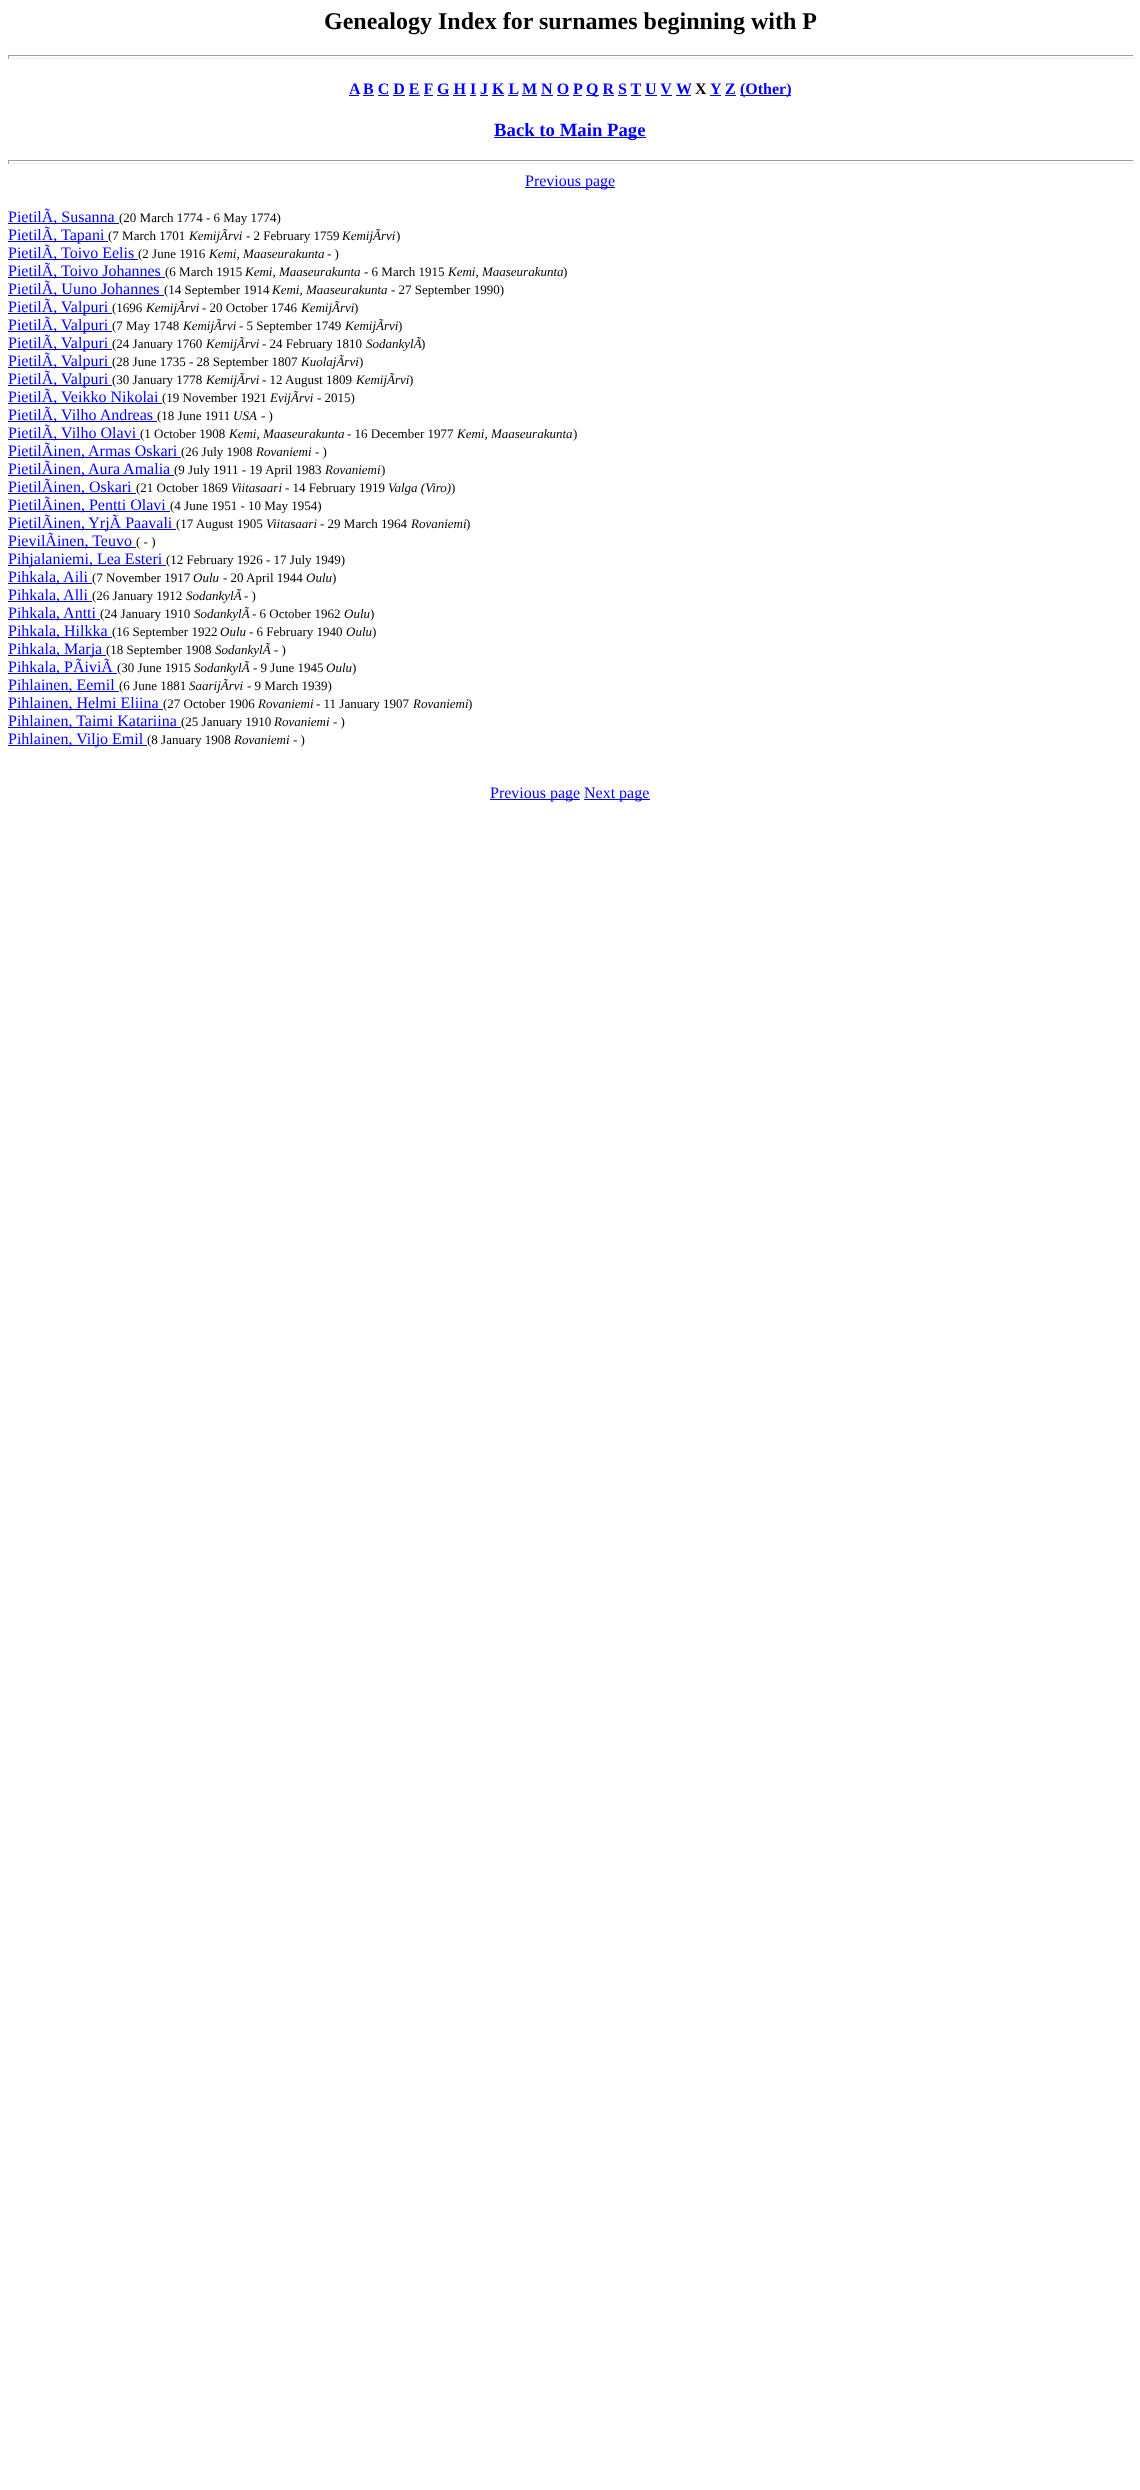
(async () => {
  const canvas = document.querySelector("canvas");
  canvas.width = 1140;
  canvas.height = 2490;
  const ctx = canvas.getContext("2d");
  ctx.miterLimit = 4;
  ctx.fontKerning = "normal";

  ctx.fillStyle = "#ffffff";
  ctx.fillRect(0, 0, 1140, 2490);
  for (const [x, y, w, h, color] of [
    [8, 55, 1126, 1, "#9f9f9f"],
    [1133, 55, 1, 4, "#eeeeee"],
    [8, 58, 1126, 1, "#eeeeee"],
    [8, 55, 1, 4, "#9f9f9f"],
    [349, 95, 10, 1, "#0000ff"],
    [363, 95, 11, 1, "#0000ff"],
    [437, 95, 12, 1, "#0000ff"],
    [522, 95, 15, 1, "#0000ff"],
    [586, 95, 13, 1, "#0000ff"],
    [676, 95, 15, 1, "#0000ff"],
    [710, 95, 11, 1, "#0000ff"],
    [725, 95, 11, 1, "#0000ff"],
    [740, 95, 51, 1, "#0000ff"],
    [378, 95, 11, 1, "#0000ff"],
    [393, 95, 12, 1, "#0000ff"],
    [409, 95, 11, 1, "#0000ff"],
    [424, 95, 9, 1, "#0000ff"],
    [453, 95, 13, 1, "#0000ff"],
    [470, 95, 6, 1, "#0000ff"],
    [480, 95, 8, 1, "#0000ff"],
    [492, 95, 12, 1, "#0000ff"],
    [508, 95, 10, 1, "#0000ff"],
    [541, 95, 12, 1, "#0000ff"],
    [557, 95, 12, 1, "#0000ff"],
    [573, 95, 9, 1, "#0000ff"],
    [603, 95, 11, 1, "#0000ff"],
    [618, 95, 9, 1, "#0000ff"],
    [631, 95, 10, 1, "#0000ff"],
    [645, 95, 12, 1, "#0000ff"],
    [661, 95, 11, 1, "#0000ff"],
    [494, 137, 152, 1, "#0000ff"],
    [8, 160, 1126, 1, "#9f9f9f"],
    [1133, 160, 1, 4, "#eeeeee"],
    [8, 163, 1126, 1, "#eeeeee"],
    [8, 160, 1, 4, "#9f9f9f"],
    [525, 187, 90, 1, "#0000ff"],
    [8, 223, 111, 1, "#0000ff"],
    [8, 241, 100, 1, "#0000ff"],
    [8, 259, 130, 1, "#0000ff"],
    [8, 277, 157, 1, "#0000ff"],
    [8, 295, 156, 1, "#0000ff"],
    [8, 313, 104, 1, "#0000ff"],
    [8, 331, 104, 1, "#0000ff"],
    [8, 349, 104, 1, "#0000ff"],
    [8, 367, 104, 1, "#0000ff"],
    [8, 385, 104, 1, "#0000ff"],
    [8, 403, 154, 1, "#0000ff"],
    [8, 421, 149, 1, "#0000ff"],
    [8, 439, 132, 1, "#0000ff"],
    [8, 457, 173, 1, "#0000ff"],
    [8, 475, 166, 1, "#0000ff"],
    [8, 493, 128, 1, "#0000ff"],
    [8, 511, 162, 1, "#0000ff"],
    [8, 529, 168, 1, "#0000ff"],
    [8, 547, 128, 1, "#0000ff"],
    [8, 565, 158, 1, "#0000ff"],
    [8, 583, 84, 1, "#0000ff"],
    [8, 601, 84, 1, "#0000ff"],
    [8, 619, 92, 1, "#0000ff"],
    [8, 637, 104, 1, "#0000ff"],
    [8, 655, 98, 1, "#0000ff"],
    [8, 673, 109, 1, "#0000ff"],
    [8, 691, 111, 1, "#0000ff"],
    [8, 709, 155, 1, "#0000ff"],
    [8, 727, 173, 1, "#0000ff"],
    [8, 745, 139, 1, "#0000ff"],
    [490, 799, 90, 1, "#0000ff"],
    [584, 799, 66, 1, "#0000ff"],
  ]) {
    ctx.fillStyle = color;
    ctx.fillRect(x, y, w, h);
  }
  ctx.font = "bold 24px Liberation Serif";
  ctx.fillStyle = "#000000";
  ctx.fillText("Genealogy Index for surnames beginning with P", 324, 29);
  ctx.font = "bold 16px Liberation Serif";
  ctx.fillStyle = "#0000ff";
  for (const [text, x, y] of [
    ["A", 349, 94],
    ["B C D E F", 363, 94],
    ["G H I J K L", 437, 94],
    ["M N O P", 522, 94],
    ["Q R S T U V", 586, 94],
    ["W", 676, 94],
  ]) {
    ctx.fillText(text, x, y);
  }
  ctx.fillStyle = "#000000";
  ctx.fillText("X", 695, 94);
  ctx.fillStyle = "#0000ff";
  for (const [text, x, y] of [
    ["Y", 710, 94],
    ["Z", 725, 94],
    ["(Other)", 740, 94],
  ]) {
    ctx.fillText(text, x, y);
  }
  ctx.font = "bold 18.75px Liberation Serif";
  ctx.fillText("Back to Main Page", 494, 136);
  ctx.font = "16px Liberation Serif";
  ctx.fillText("Previous page", 525, 186);
  ctx.fillText("PietilÃ, Susanna", 8, 222);
  ctx.font = "13px Liberation Serif";
  ctx.fillStyle = "#000000";
  ctx.fillText("(20 March 1774 - 6 May 1774)", 119, 222);
  ctx.font = "16px Liberation Serif";
  ctx.fillStyle = "#0000ff";
  ctx.fillText("PietilÃ, Tapani", 8, 240);
  ctx.font = "13px Liberation Serif";
  ctx.fillStyle = "#000000";
  ctx.fillText("(7 March 1701", 108, 240);
  ctx.font = "italic 13px Liberation Serif";
  ctx.fillText("KemijÃrvi", 189, 240);
  ctx.font = "13px Liberation Serif";
  ctx.fillText("- 2 February 1759", 246, 240);
  ctx.font = "italic 13px Liberation Serif";
  ctx.fillText("KemijÃrvi", 342, 240);
  ctx.font = "13px Liberation Serif";
  ctx.fillText(")", 396, 240);
  ctx.font = "16px Liberation Serif";
  ctx.fillStyle = "#0000ff";
  ctx.fillText("PietilÃ, Toivo Eelis", 8, 258);
  ctx.font = "13px Liberation Serif";
  ctx.fillStyle = "#000000";
  ctx.fillText("(2 June 1916", 138, 258);
  ctx.font = "italic 13px Liberation Serif";
  ctx.fillText("Kemi, Maaseurakunta", 209, 258);
  ctx.font = "13px Liberation Serif";
  ctx.fillText("- )", 327, 258);
  ctx.font = "16px Liberation Serif";
  ctx.fillStyle = "#0000ff";
  ctx.fillText("PietilÃ, Toivo Johannes", 8, 276);
  ctx.font = "13px Liberation Serif";
  ctx.fillStyle = "#000000";
  ctx.fillText("(6 March 1915", 165, 276);
  ctx.font = "italic 13px Liberation Serif";
  ctx.fillText("Kemi, Maaseurakunta", 245, 276);
  ctx.font = "13px Liberation Serif";
  ctx.fillText("- 6 March 1915", 364, 276);
  ctx.font = "italic 13px Liberation Serif";
  ctx.fillText("Kemi, Maaseurakunta", 448, 276);
  ctx.font = "13px Liberation Serif";
  ctx.fillText(")", 563, 276);
  ctx.font = "16px Liberation Serif";
  ctx.fillStyle = "#0000ff";
  ctx.fillText("PietilÃ, Uuno Johannes", 8, 294);
  ctx.font = "13px Liberation Serif";
  ctx.fillStyle = "#000000";
  ctx.fillText("(14 September 1914", 164, 294);
  ctx.font = "italic 13px Liberation Serif";
  ctx.fillText("Kemi, Maaseurakunta", 272, 294);
  ctx.font = "13px Liberation Serif";
  ctx.fillText("- 27 September 1990)", 391, 294);
  ctx.font = "16px Liberation Serif";
  ctx.fillStyle = "#0000ff";
  ctx.fillText("PietilÃ, Valpuri", 8, 312);
  ctx.font = "13px Liberation Serif";
  ctx.fillStyle = "#000000";
  ctx.fillText("(1696", 112, 312);
  ctx.font = "italic 13px Liberation Serif";
  ctx.fillText("KemijÃrvi", 146, 312);
  ctx.font = "13px Liberation Serif";
  ctx.fillText("- 20 October 1746", 202, 312);
  ctx.font = "italic 13px Liberation Serif";
  ctx.fillText("KemijÃrvi", 301, 312);
  ctx.font = "13px Liberation Serif";
  ctx.fillText(")", 354, 312);
  ctx.font = "16px Liberation Serif";
  ctx.fillStyle = "#0000ff";
  ctx.fillText("PietilÃ, Valpuri", 8, 330);
  ctx.font = "13px Liberation Serif";
  ctx.fillStyle = "#000000";
  ctx.fillText("(7 May 1748", 112, 330);
  ctx.font = "italic 13px Liberation Serif";
  ctx.fillText("KemijÃrvi", 183, 330);
  ctx.font = "13px Liberation Serif";
  ctx.fillText("- 5 September 1749", 239, 330);
  ctx.font = "italic 13px Liberation Serif";
  ctx.fillText("KemijÃrvi", 345, 330);
  ctx.font = "13px Liberation Serif";
  ctx.fillText(")", 398, 330);
  ctx.font = "16px Liberation Serif";
  ctx.fillStyle = "#0000ff";
  ctx.fillText("PietilÃ, Valpuri", 8, 348);
  ctx.font = "13px Liberation Serif";
  ctx.fillStyle = "#000000";
  ctx.fillText("(24 January 1760", 112, 348);
  ctx.font = "italic 13px Liberation Serif";
  ctx.fillText("KemijÃrvi", 206, 348);
  ctx.font = "13px Liberation Serif";
  ctx.fillText("- 24 February 1810", 262, 348);
  ctx.font = "italic 13px Liberation Serif";
  ctx.fillText("SodankylÃ", 366, 348);
  ctx.font = "13px Liberation Serif";
  ctx.fillText(")", 421, 348);
  ctx.font = "16px Liberation Serif";
  ctx.fillStyle = "#0000ff";
  ctx.fillText("PietilÃ, Valpuri", 8, 366);
  ctx.font = "13px Liberation Serif";
  ctx.fillStyle = "#000000";
  ctx.fillText("(28 June 1735 - 28 September 1807", 112, 366);
  ctx.font = "italic 13px Liberation Serif";
  ctx.fillText("KuolajÃrvi", 301, 366);
  ctx.font = "13px Liberation Serif";
  ctx.fillText(")", 359, 366);
  ctx.font = "16px Liberation Serif";
  ctx.fillStyle = "#0000ff";
  ctx.fillText("PietilÃ, Valpuri", 8, 384);
  ctx.font = "13px Liberation Serif";
  ctx.fillStyle = "#000000";
  ctx.fillText("(30 January 1778", 112, 384);
  ctx.font = "italic 13px Liberation Serif";
  ctx.fillText("KemijÃrvi", 206, 384);
  ctx.font = "13px Liberation Serif";
  ctx.fillText("- 12 August 1809", 262, 384);
  ctx.font = "italic 13px Liberation Serif";
  ctx.fillText("KemijÃrvi", 356, 384);
  ctx.font = "13px Liberation Serif";
  ctx.fillText(")", 409, 384);
  ctx.font = "16px Liberation Serif";
  ctx.fillStyle = "#0000ff";
  ctx.fillText("PietilÃ, Veikko Nikolai", 8, 402);
  ctx.font = "13px Liberation Serif";
  ctx.fillStyle = "#000000";
  ctx.fillText("(19 November 1921", 162, 402);
  ctx.font = "italic 13px Liberation Serif";
  ctx.fillText("EvijÃrvi", 270, 402);
  ctx.font = "13px Liberation Serif";
  ctx.fillText("- 2015)", 317, 402);
  ctx.font = "16px Liberation Serif";
  ctx.fillStyle = "#0000ff";
  ctx.fillText("PietilÃ, Vilho Andreas", 8, 420);
  ctx.font = "13px Liberation Serif";
  ctx.fillStyle = "#000000";
  ctx.fillText("(18 June 1911", 157, 420);
  ctx.font = "italic 13px Liberation Serif";
  ctx.fillText("USA", 233, 420);
  ctx.font = "13px Liberation Serif";
  ctx.fillText("- )", 261, 420);
  ctx.font = "16px Liberation Serif";
  ctx.fillStyle = "#0000ff";
  ctx.fillText("PietilÃ, Vilho Olavi", 8, 438);
  ctx.font = "13px Liberation Serif";
  ctx.fillStyle = "#000000";
  ctx.fillText("(1 October 1908", 140, 438);
  ctx.font = "italic 13px Liberation Serif";
  ctx.fillText("Kemi, Maaseurakunta", 229, 438);
  ctx.font = "13px Liberation Serif";
  ctx.fillText("- 16 December 1977", 347, 438);
  ctx.font = "italic 13px Liberation Serif";
  ctx.fillText("Kemi, Maaseurakunta", 457, 438);
  ctx.font = "13px Liberation Serif";
  ctx.fillText(")", 573, 438);
  ctx.font = "16px Liberation Serif";
  ctx.fillStyle = "#0000ff";
  ctx.fillText("PietilÃinen, Armas Oskari", 8, 456);
  ctx.font = "13px Liberation Serif";
  ctx.fillStyle = "#000000";
  ctx.fillText("(26 July 1908", 181, 456);
  ctx.font = "italic 13px Liberation Serif";
  ctx.fillText("Rovaniemi", 256, 456);
  ctx.font = "13px Liberation Serif";
  ctx.fillText("- )", 315, 456);
  ctx.font = "16px Liberation Serif";
  ctx.fillStyle = "#0000ff";
  ctx.fillText("PietilÃinen, Aura Amalia", 8, 474);
  ctx.font = "13px Liberation Serif";
  ctx.fillStyle = "#000000";
  ctx.fillText("(9 July 1911 - 19 April 1983", 174, 474);
  ctx.font = "italic 13px Liberation Serif";
  ctx.fillText("Rovaniemi", 325, 474);
  ctx.font = "13px Liberation Serif";
  ctx.fillText(")", 381, 474);
  ctx.font = "16px Liberation Serif";
  ctx.fillStyle = "#0000ff";
  ctx.fillText("PietilÃinen, Oskari", 8, 492);
  ctx.font = "13px Liberation Serif";
  ctx.fillStyle = "#000000";
  ctx.fillText("(21 October 1869", 136, 492);
  ctx.font = "italic 13px Liberation Serif";
  ctx.fillText("Viitasaari", 231, 492);
  ctx.font = "13px Liberation Serif";
  ctx.fillText("- 14 February 1919", 285, 492);
  ctx.font = "italic 13px Liberation Serif";
  ctx.fillText("Valga (Viro)", 388, 492);
  ctx.font = "13px Liberation Serif";
  ctx.fillText(")", 451, 492);
  ctx.font = "16px Liberation Serif";
  ctx.fillStyle = "#0000ff";
  ctx.fillText("PietilÃinen, Pentti Olavi", 8, 510);
  ctx.font = "13px Liberation Serif";
  ctx.fillStyle = "#000000";
  ctx.fillText("(4 June 1951 - 10 May 1954)", 170, 510);
  ctx.font = "16px Liberation Serif";
  ctx.fillStyle = "#0000ff";
  ctx.fillText("PietilÃinen, YrjÃ Paavali", 8, 528);
  ctx.font = "13px Liberation Serif";
  ctx.fillStyle = "#000000";
  ctx.fillText("(17 August 1905", 176, 528);
  ctx.font = "italic 13px Liberation Serif";
  ctx.fillText("Viitasaari", 266, 528);
  ctx.font = "13px Liberation Serif";
  ctx.fillText("- 29 March 1964", 320, 528);
  ctx.font = "italic 13px Liberation Serif";
  ctx.fillText("Rovaniemi", 411, 528);
  ctx.font = "13px Liberation Serif";
  ctx.fillText(")", 466, 528);
  ctx.font = "16px Liberation Serif";
  ctx.fillStyle = "#0000ff";
  ctx.fillText("PievilÃinen, Teuvo", 8, 546);
  ctx.font = "13px Liberation Serif";
  ctx.fillStyle = "#000000";
  ctx.fillText("( - )", 136, 546);
  ctx.font = "16px Liberation Serif";
  ctx.fillStyle = "#0000ff";
  ctx.fillText("Pihjalaniemi, Lea Esteri", 8, 564);
  ctx.font = "13px Liberation Serif";
  ctx.fillStyle = "#000000";
  ctx.fillText("(12 February 1926 - 17 July 1949)", 166, 564);
  ctx.font = "16px Liberation Serif";
  ctx.fillStyle = "#0000ff";
  ctx.fillText("Pihkala, Aili", 8, 582);
  ctx.font = "13px Liberation Serif";
  ctx.fillStyle = "#000000";
  ctx.fillText("(7 November 1917", 92, 582);
  ctx.font = "italic 13px Liberation Serif";
  ctx.fillText("Oulu", 193, 582);
  ctx.font = "13px Liberation Serif";
  ctx.fillText("- 20 April 1944", 223, 582);
  ctx.font = "italic 13px Liberation Serif";
  ctx.fillText("Oulu", 306, 582);
  ctx.font = "13px Liberation Serif";
  ctx.fillText(")", 332, 582);
  ctx.font = "16px Liberation Serif";
  ctx.fillStyle = "#0000ff";
  ctx.fillText("Pihkala, Alli", 8, 600);
  ctx.font = "13px Liberation Serif";
  ctx.fillStyle = "#000000";
  ctx.fillText("(26 January 1912", 92, 600);
  ctx.font = "italic 13px Liberation Serif";
  ctx.fillText("SodankylÃ", 186, 600);
  ctx.font = "13px Liberation Serif";
  ctx.fillText("- )", 244, 600);
  ctx.font = "16px Liberation Serif";
  ctx.fillStyle = "#0000ff";
  ctx.fillText("Pihkala, Antti", 8, 618);
  ctx.font = "13px Liberation Serif";
  ctx.fillStyle = "#000000";
  ctx.fillText("(24 January 1910", 100, 618);
  ctx.font = "italic 13px Liberation Serif";
  ctx.fillText("SodankylÃ", 194, 618);
  ctx.font = "13px Liberation Serif";
  ctx.fillText("- 6 October 1962", 252, 618);
  ctx.font = "italic 13px Liberation Serif";
  ctx.fillText("Oulu", 344, 618);
  ctx.font = "13px Liberation Serif";
  ctx.fillText(")", 370, 618);
  ctx.font = "16px Liberation Serif";
  ctx.fillStyle = "#0000ff";
  ctx.fillText("Pihkala, Hilkka", 8, 636);
  ctx.font = "13px Liberation Serif";
  ctx.fillStyle = "#000000";
  ctx.fillText("(16 September 1922", 112, 636);
  ctx.font = "italic 13px Liberation Serif";
  ctx.fillText("Oulu", 220, 636);
  ctx.font = "13px Liberation Serif";
  ctx.fillText("- 6 February 1940", 249, 636);
  ctx.font = "italic 13px Liberation Serif";
  ctx.fillText("Oulu", 346, 636);
  ctx.font = "13px Liberation Serif";
  ctx.fillText(")", 372, 636);
  ctx.font = "16px Liberation Serif";
  ctx.fillStyle = "#0000ff";
  ctx.fillText("Pihkala, Marja", 8, 654);
  ctx.font = "13px Liberation Serif";
  ctx.fillStyle = "#000000";
  ctx.fillText("(18 September 1908", 106, 654);
  ctx.font = "italic 13px Liberation Serif";
  ctx.fillText("SodankylÃ", 215, 654);
  ctx.font = "13px Liberation Serif";
  ctx.fillText("- )", 274, 654);
  ctx.font = "16px Liberation Serif";
  ctx.fillStyle = "#0000ff";
  ctx.fillText("Pihkala, PÃiviÃ", 8, 672);
  ctx.font = "13px Liberation Serif";
  ctx.fillStyle = "#000000";
  ctx.fillText("(30 June 1915", 117, 672);
  ctx.font = "italic 13px Liberation Serif";
  ctx.fillText("SodankylÃ", 194, 672);
  ctx.font = "13px Liberation Serif";
  ctx.fillText("- 9 June 1945", 253, 672);
  ctx.font = "italic 13px Liberation Serif";
  ctx.fillText("Oulu", 326, 672);
  ctx.font = "13px Liberation Serif";
  ctx.fillText(")", 352, 672);
  ctx.font = "16px Liberation Serif";
  ctx.fillStyle = "#0000ff";
  ctx.fillText("Pihlainen, Eemil", 8, 690);
  ctx.font = "13px Liberation Serif";
  ctx.fillStyle = "#000000";
  ctx.fillText("(6 June 1881", 119, 690);
  ctx.font = "italic 13px Liberation Serif";
  ctx.fillText("SaarijÃrvi", 189, 690);
  ctx.font = "13px Liberation Serif";
  ctx.fillText("- 9 March 1939)", 247, 690);
  ctx.font = "16px Liberation Serif";
  ctx.fillStyle = "#0000ff";
  ctx.fillText("Pihlainen, Helmi Eliina", 8, 708);
  ctx.font = "13px Liberation Serif";
  ctx.fillStyle = "#000000";
  ctx.fillText("(27 October 1906", 163, 708);
  ctx.font = "italic 13px Liberation Serif";
  ctx.fillText("Rovaniemi", 258, 708);
  ctx.font = "13px Liberation Serif";
  ctx.fillText("- 11 January 1907", 316, 708);
  ctx.font = "italic 13px Liberation Serif";
  ctx.fillText("Rovaniemi", 413, 708);
  ctx.font = "13px Liberation Serif";
  ctx.fillText(")", 468, 708);
  ctx.font = "16px Liberation Serif";
  ctx.fillStyle = "#0000ff";
  ctx.fillText("Pihlainen, Taimi Katariina", 8, 726);
  ctx.font = "13px Liberation Serif";
  ctx.fillStyle = "#000000";
  ctx.fillText("(25 January 1910", 181, 726);
  ctx.font = "italic 13px Liberation Serif";
  ctx.fillText("Rovaniemi", 274, 726);
  ctx.font = "13px Liberation Serif";
  ctx.fillText("- )", 333, 726);
  ctx.font = "16px Liberation Serif";
  ctx.fillStyle = "#0000ff";
  ctx.fillText("Pihlainen, Viljo Emil", 8, 744);
  ctx.font = "13px Liberation Serif";
  ctx.fillStyle = "#000000";
  ctx.fillText("(8 January 1908", 147, 744);
  ctx.font = "italic 13px Liberation Serif";
  ctx.fillText("Rovaniemi", 234, 744);
  ctx.font = "13px Liberation Serif";
  ctx.fillText("- )", 293, 744);
  ctx.font = "16px Liberation Serif";
  ctx.fillStyle = "#0000ff";
  ctx.fillText("Previous page", 490, 798);
  ctx.fillText("Next page", 584, 798);
})();
